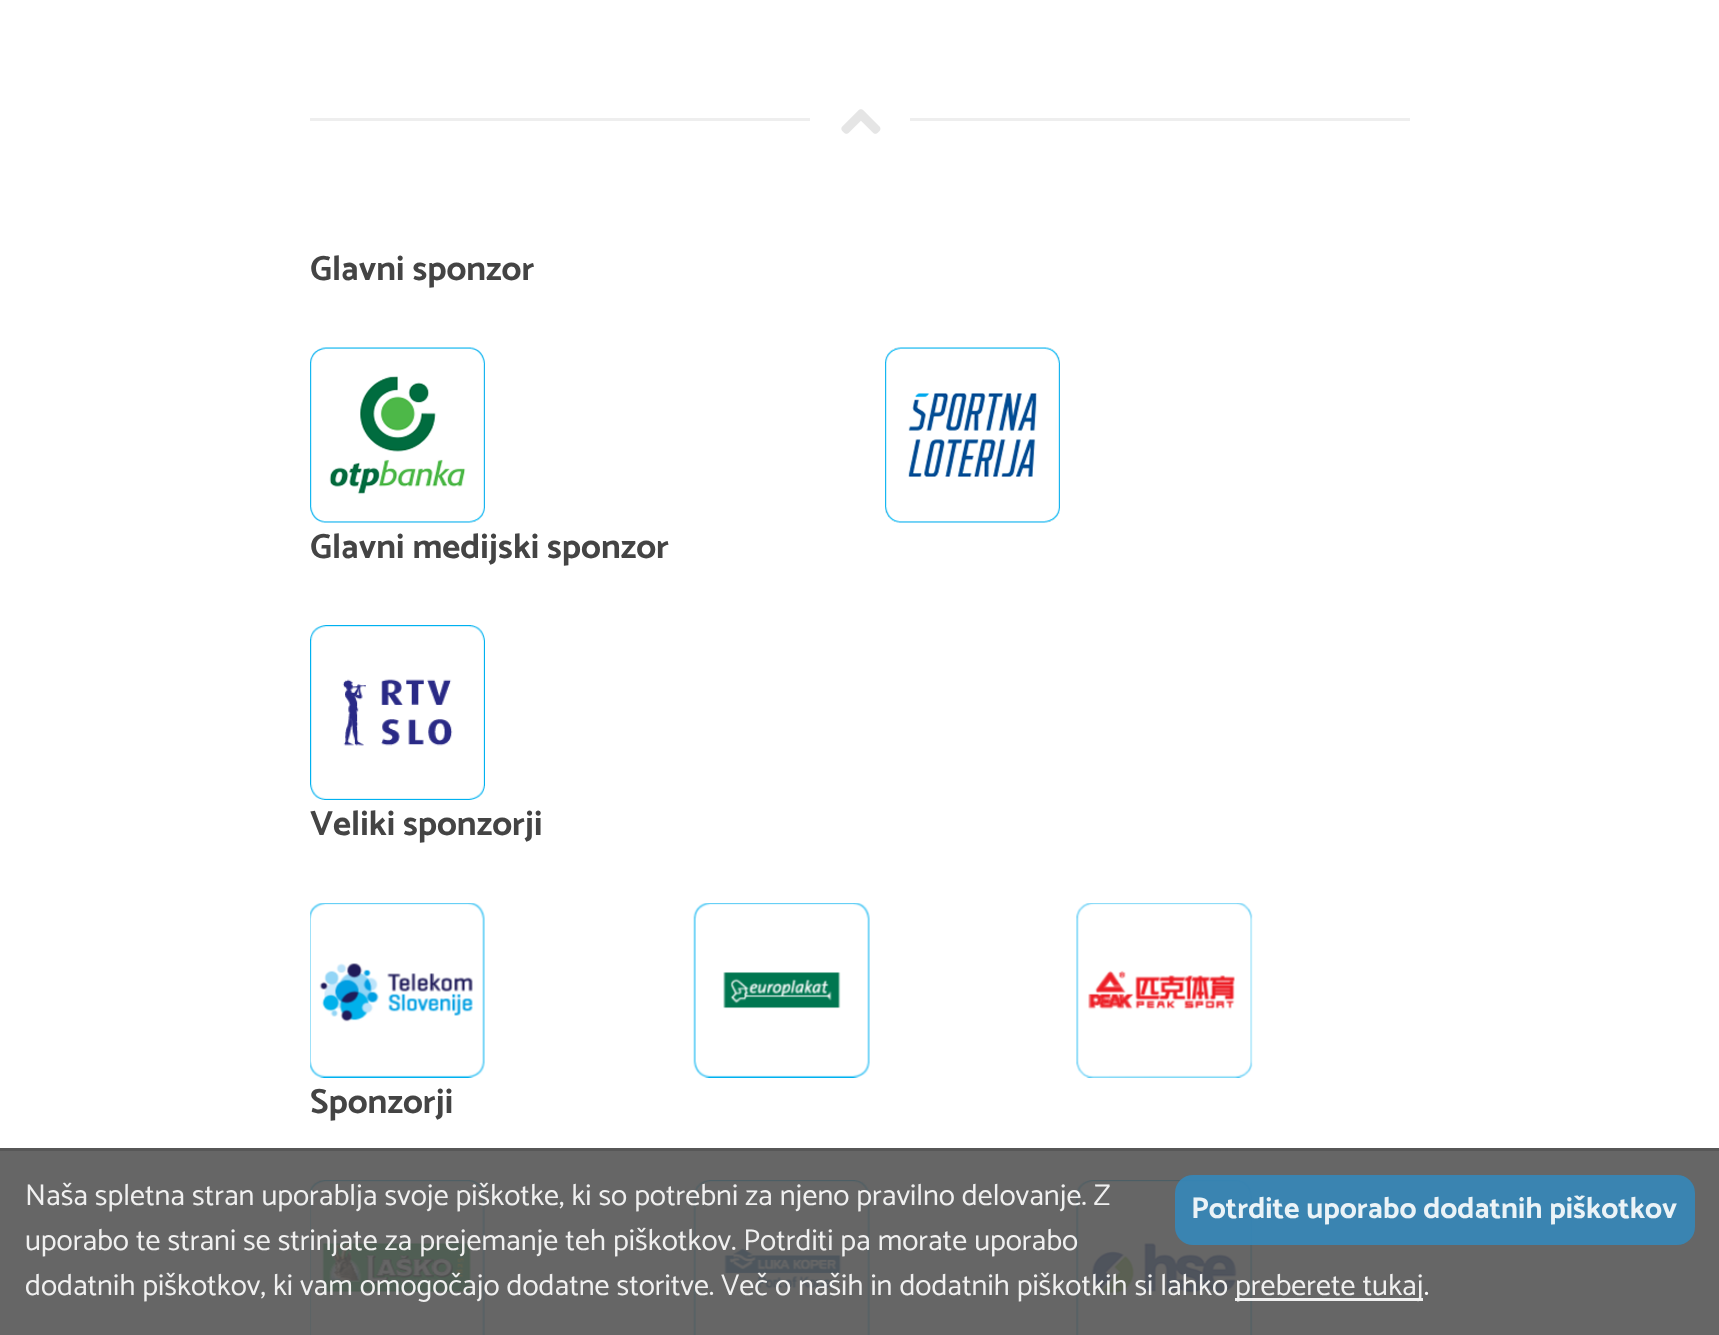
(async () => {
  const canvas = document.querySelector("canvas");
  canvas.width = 1719;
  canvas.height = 1335;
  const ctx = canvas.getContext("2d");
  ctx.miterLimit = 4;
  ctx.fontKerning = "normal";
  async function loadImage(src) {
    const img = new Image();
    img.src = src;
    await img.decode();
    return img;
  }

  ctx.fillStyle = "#ffffff";
  ctx.fillRect(0, 0, 1719, 1335);
  ctx.fillStyle = "#666666";
  ctx.fillRect(0, 1151, 1719, 184);
  ctx.fillStyle = "#eeeeee";
  ctx.fillRect(310, 118, 500, 3);
  ctx.drawImage(await loadImage("img/1.png"), 841, 109, 40, 25);
  ctx.fillRect(910, 118, 500, 3);
  ctx.drawImage(await loadImage("img/2.png"), 310, 347, 175, 176);
  ctx.drawImage(await loadImage("img/3.png"), 885, 347, 175, 176);
  ctx.drawImage(await loadImage("img/4.png"), 310, 625, 175, 175);
  ctx.drawImage(await loadImage("img/5.png"), 310, 903, 175, 175);
  ctx.drawImage(await loadImage("img/6.png"), 693, 903, 177, 175);
  ctx.drawImage(await loadImage("img/7.png"), 1076, 903, 177, 175);
  ctx.drawImage(await loadImage("img/8.png"), 310, 1180, 175, 155);
  ctx.drawImage(await loadImage("img/9.png"), 693, 1180, 177, 155);
  ctx.drawImage(await loadImage("img/10.png"), 1076, 1180, 177, 155);
  ctx.fillStyle = "#575757";
  ctx.fillRect(0, 1148, 1719, 3);
  ctx.fillStyle = "rgba(53, 135, 185, 0.9)";
  ctx.beginPath();
  ctx.roundRect(1175, 1175, 520, 70, 18);
  ctx.fill();
  ctx.fillStyle = "rgba(255, 255, 255, 0.9)";
  ctx.fillRect(1235, 1298, 188, 3);
  ctx.font = "bold 35px Catamaran";
  ctx.fillStyle = "#444444";
  for (const [text, x, y] of [
    ["Glavni sponzor", 310, 280],
    ["Glavni medijski sponzor", 310, 558],
    ["Veliki sponzorji", 310, 835],
    ["Sponzorji", 310, 1113],
  ]) {
    ctx.fillText(text, x, y);
  }
  ctx.font = "30px Catamaran";
  ctx.fillStyle = "#f0f0f0";
  ctx.fillText("Naša spletna stran uporablja svoje piškotke, ki so potrebni za njeno pravilno delovanje. Z", 25, 1205);
  ctx.font = "bold 30px Catamaran";
  ctx.fillStyle = "#ebf3f7";
  ctx.fillText("Potrdite uporabo dodatnih piškotkov", 1191, 1218);
  ctx.font = "30px Catamaran";
  ctx.fillStyle = "#f0f0f0";
  for (const [text, x, y] of [
    ["uporabo te strani se strinjate za prejemanje teh piškotkov. Potrditi pa morate uporabo", 25, 1250],
    ["dodatnih piškotkov, ki vam omogočajo dodatne storitve. Več o naših in dodatnih piškotkih si lahko", 25, 1295],
    ["preberete tukaj", 1235, 1295],
  ]) {
    ctx.fillText(text, x, y);
  }
  ctx.fillStyle = "#ffffff";
  ctx.fillText(".", 1424, 1295);
})();
